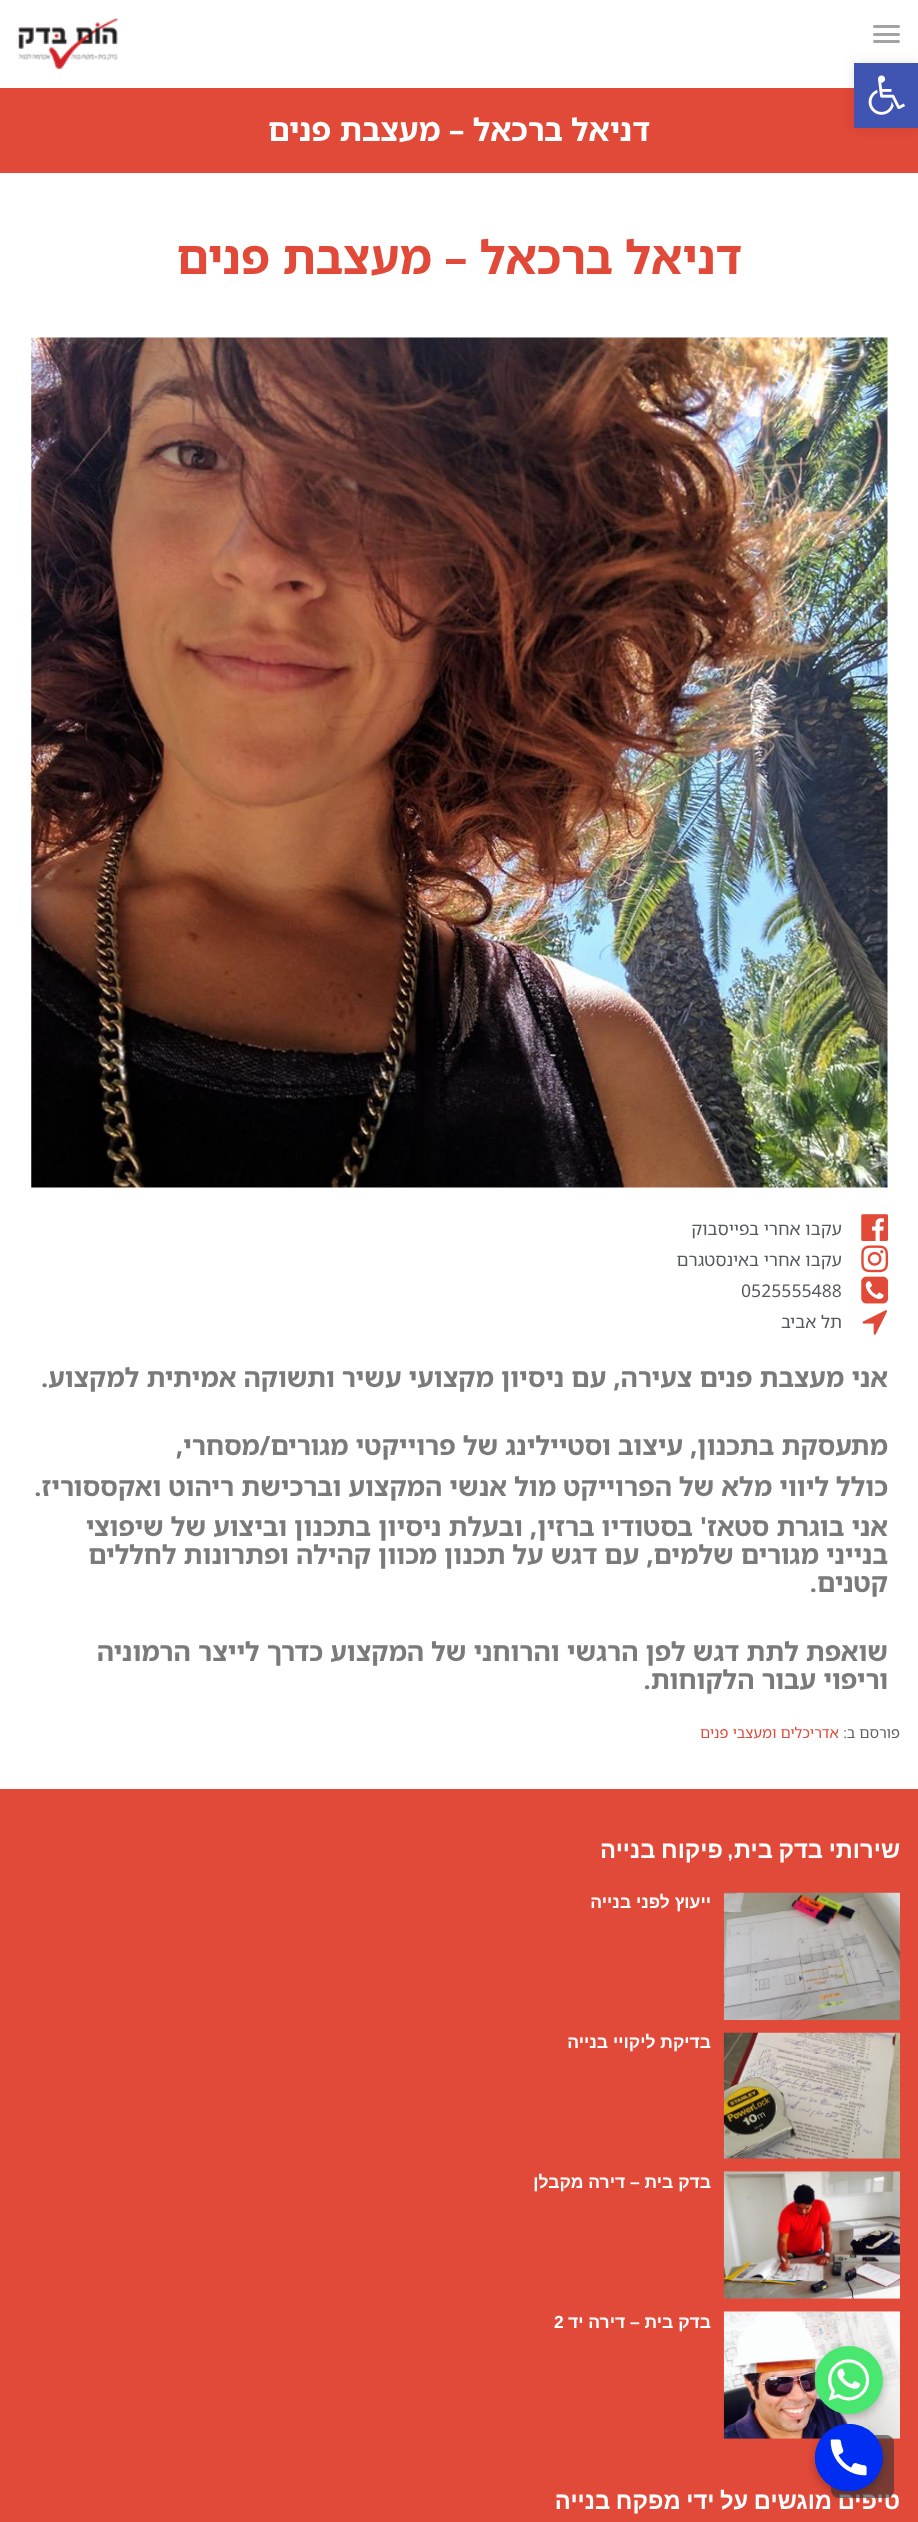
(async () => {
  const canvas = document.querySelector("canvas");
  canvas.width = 918;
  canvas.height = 2522;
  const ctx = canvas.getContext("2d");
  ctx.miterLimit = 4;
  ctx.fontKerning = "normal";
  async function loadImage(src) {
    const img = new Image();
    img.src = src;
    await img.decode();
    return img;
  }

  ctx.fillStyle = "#ffffff";
  ctx.fillRect(0, 0, 918, 2522);
  ctx.fillStyle = "#e14938";
  ctx.fillRect(0, 88, 918, 85);
  ctx.fillStyle = "rgba(0, 0, 0, 0.1)";
  ctx.filter = "blur(6px)";
  ctx.beginPath();
  ctx.rect(854, 63, 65, 65);
  ctx.fill();
  ctx.filter = "none";
  ctx.fillStyle = "#4054b2";
  ctx.fillRect(854, 63, 64, 65);
  ctx.drawImage(await loadImage("img/1.png"), 868, 75, 37, 40);
  ctx.fillStyle = "#a3a3a3";
  ctx.beginPath();
  ctx.roundRect(873, 25, 27, 3, 1.5);
  ctx.fill();
  ctx.beginPath();
  ctx.roundRect(873, 33, 27, 3, 1.5);
  ctx.fill();
  ctx.beginPath();
  ctx.roundRect(873, 40, 27, 3, 1.5);
  ctx.fill();
  ctx.drawImage(await loadImage("img/2.png"), 18, 18, 100, 51);
  ctx.drawImage(await loadImage("img/3.png"), 31, 337, 857, 851);
  ctx.drawImage(await loadImage("img/4.png"), 861, 1214, 28, 27);
  ctx.drawImage(await loadImage("img/5.png"), 861, 1245, 28, 28);
  ctx.drawImage(await loadImage("img/6.png"), 861, 1276, 28, 28);
  ctx.drawImage(await loadImage("img/7.png"), 862, 1310, 25, 25);
  ctx.fillStyle = "#e14938";
  ctx.fillRect(0, 1789, 918, 733);
  ctx.drawImage(await loadImage("img/8.png"), 723, 1892, 177, 128);
  ctx.drawImage(await loadImage("img/9.png"), 723, 2032, 177, 127);
  ctx.drawImage(await loadImage("img/10.png"), 723, 2171, 177, 128);
  ctx.drawImage(await loadImage("img/11.png"), 723, 2311, 177, 128);
  ctx.fillStyle = "rgba(0, 0, 0, 0.25)";
  ctx.filter = "blur(4px)";
  ctx.beginPath();
  ctx.roundRect(815, 2350, 68, 68, 34);
  ctx.fill();
  ctx.filter = "none";
  ctx.fillStyle = "#49e670";
  ctx.beginPath();
  ctx.arc(849, 2380, 34, 0, Math.PI * 2);
  ctx.fill();
  ctx.drawImage(await loadImage("img/12.png"), 815, 2346, 55, 68);
  ctx.direction = "rtl";
  ctx.font = "bold 31.25px Noto Sans Hebrew";
  ctx.fillStyle = "#ffffff";
  ctx.fillText("דניאל ברכאל – מעצבת פנים", 650, 141);
  ctx.font = "bold 46.25px Noto Sans Hebrew";
  ctx.fillStyle = "#e14938";
  ctx.fillText("דניאל ברכאל – מעצבת פנים", 742, 274);
  ctx.font = "17.5px Noto Sans Hebrew";
  ctx.fillStyle = "#54595f";
  ctx.fillText("עקבו אחרי בפייסבוק", 842, 1235);
  ctx.fillText("עקבו אחרי באינסטגרם", 842, 1266);
  ctx.direction = "ltr";
  ctx.fillText("0525555488", 741, 1297);
  ctx.direction = "rtl";
  ctx.fillText("תל אביב", 842, 1328);
  ctx.font = "bold 26.25px Noto Sans Hebrew";
  ctx.fillStyle = "#7a7a7a";
  for (const [text, x, y] of [
    ["אני מעצבת פנים צעירה, עם ניסיון מקצועי עשיר ותשוקה אמיתית למקצוע.", 888, 1387],
    ["מתעסקת בתכנון, עיצוב וסטיילינג של פרוייקטי מגורים/מסחרי,", 888, 1455],
    ["כולל ליווי מלא של הפרוייקט מול אנשי המקצוע וברכישת ריהוט ואקססוריז.", 888, 1496],
    ["אני בוגרת סטאז' בסטודיו ברזין, ובעלת ניסיון בתכנון וביצוע של שיפוצי", 888, 1536],
    ["בנייני מגורים שלמים, עם דגש על תכנון מכוון קהילה ופתרונות לחללים", 888, 1564],
    ["קטנים.", 888, 1592],
    ["שואפת לתת דגש לפן הרגשי והרוחני של המקצוע כדרך לייצר הרמוניה", 888, 1661],
    ["וריפוי עבור הלקוחות.", 888, 1689],
  ]) {
    ctx.fillText(text, x, y);
  }
  ctx.font = "14.9px Noto Sans Hebrew";
  ctx.fillStyle = "#606060";
  ctx.fillText("פורסם ב:", 900, 1738);
  ctx.fillStyle = "#e14938";
  ctx.fillText("אדריכלים ומעצבי פנים", 839, 1738);
  ctx.wordSpacing = "-1px";
  ctx.font = "bold 23.75px Liberation Sans";
  ctx.fillStyle = "#ffffff";
  ctx.fillText("שירותי בדק בית", 900, 1858);
  ctx.wordSpacing = "0px";
  ctx.font = "bold 23.75px Raleway";
  ctx.fillText(",", 733, 1858);
  ctx.wordSpacing = "-1px";
  ctx.font = "bold 23.75px Liberation Sans";
  ctx.fillText("פיקוח בנייה", 723, 1858);
  ctx.wordSpacing = "0px";
  ctx.font = "bold 17.5px Liberation Sans";
  for (const [text, x, y] of [
    ["ייעוץ לפני בנייה", 711, 1908],
    ["בדיקת ליקויי בנייה", 711, 2048],
    ["בדק בית – דירה מקבלן", 711, 2188],
    ["בדק בית – דירה יד", 711, 2328],
  ]) {
    ctx.fillText(text, x, y);
  }
  ctx.direction = "ltr";
  ctx.fillText("2", 554, 2328);
  ctx.wordSpacing = "-1px";
  ctx.direction = "rtl";
  ctx.font = "bold 23.75px Liberation Sans";
  ctx.fillText("טיפים מוגשים על ידי מפקח בנייה", 900, 2509);
  ctx.fillStyle = "rgba(51, 51, 51, 0.6)";
  ctx.beginPath();
  ctx.roundRect(831, 2435, 63, 63, 8);
  ctx.fill();
  ctx.fillStyle = "rgba(0, 0, 0, 0.25)";
  ctx.filter = "blur(4px)";
  ctx.beginPath();
  ctx.roundRect(815, 2428, 68, 67, 33.5);
  ctx.fill();
  ctx.filter = "none";
  ctx.fillStyle = "#002df2";
  ctx.beginPath();
  ctx.roundRect(815, 2424, 68, 67, 33.5);
  ctx.fill();
  ctx.drawImage(await loadImage("img/13.png"), 815, 2424, 54, 67);
})();
